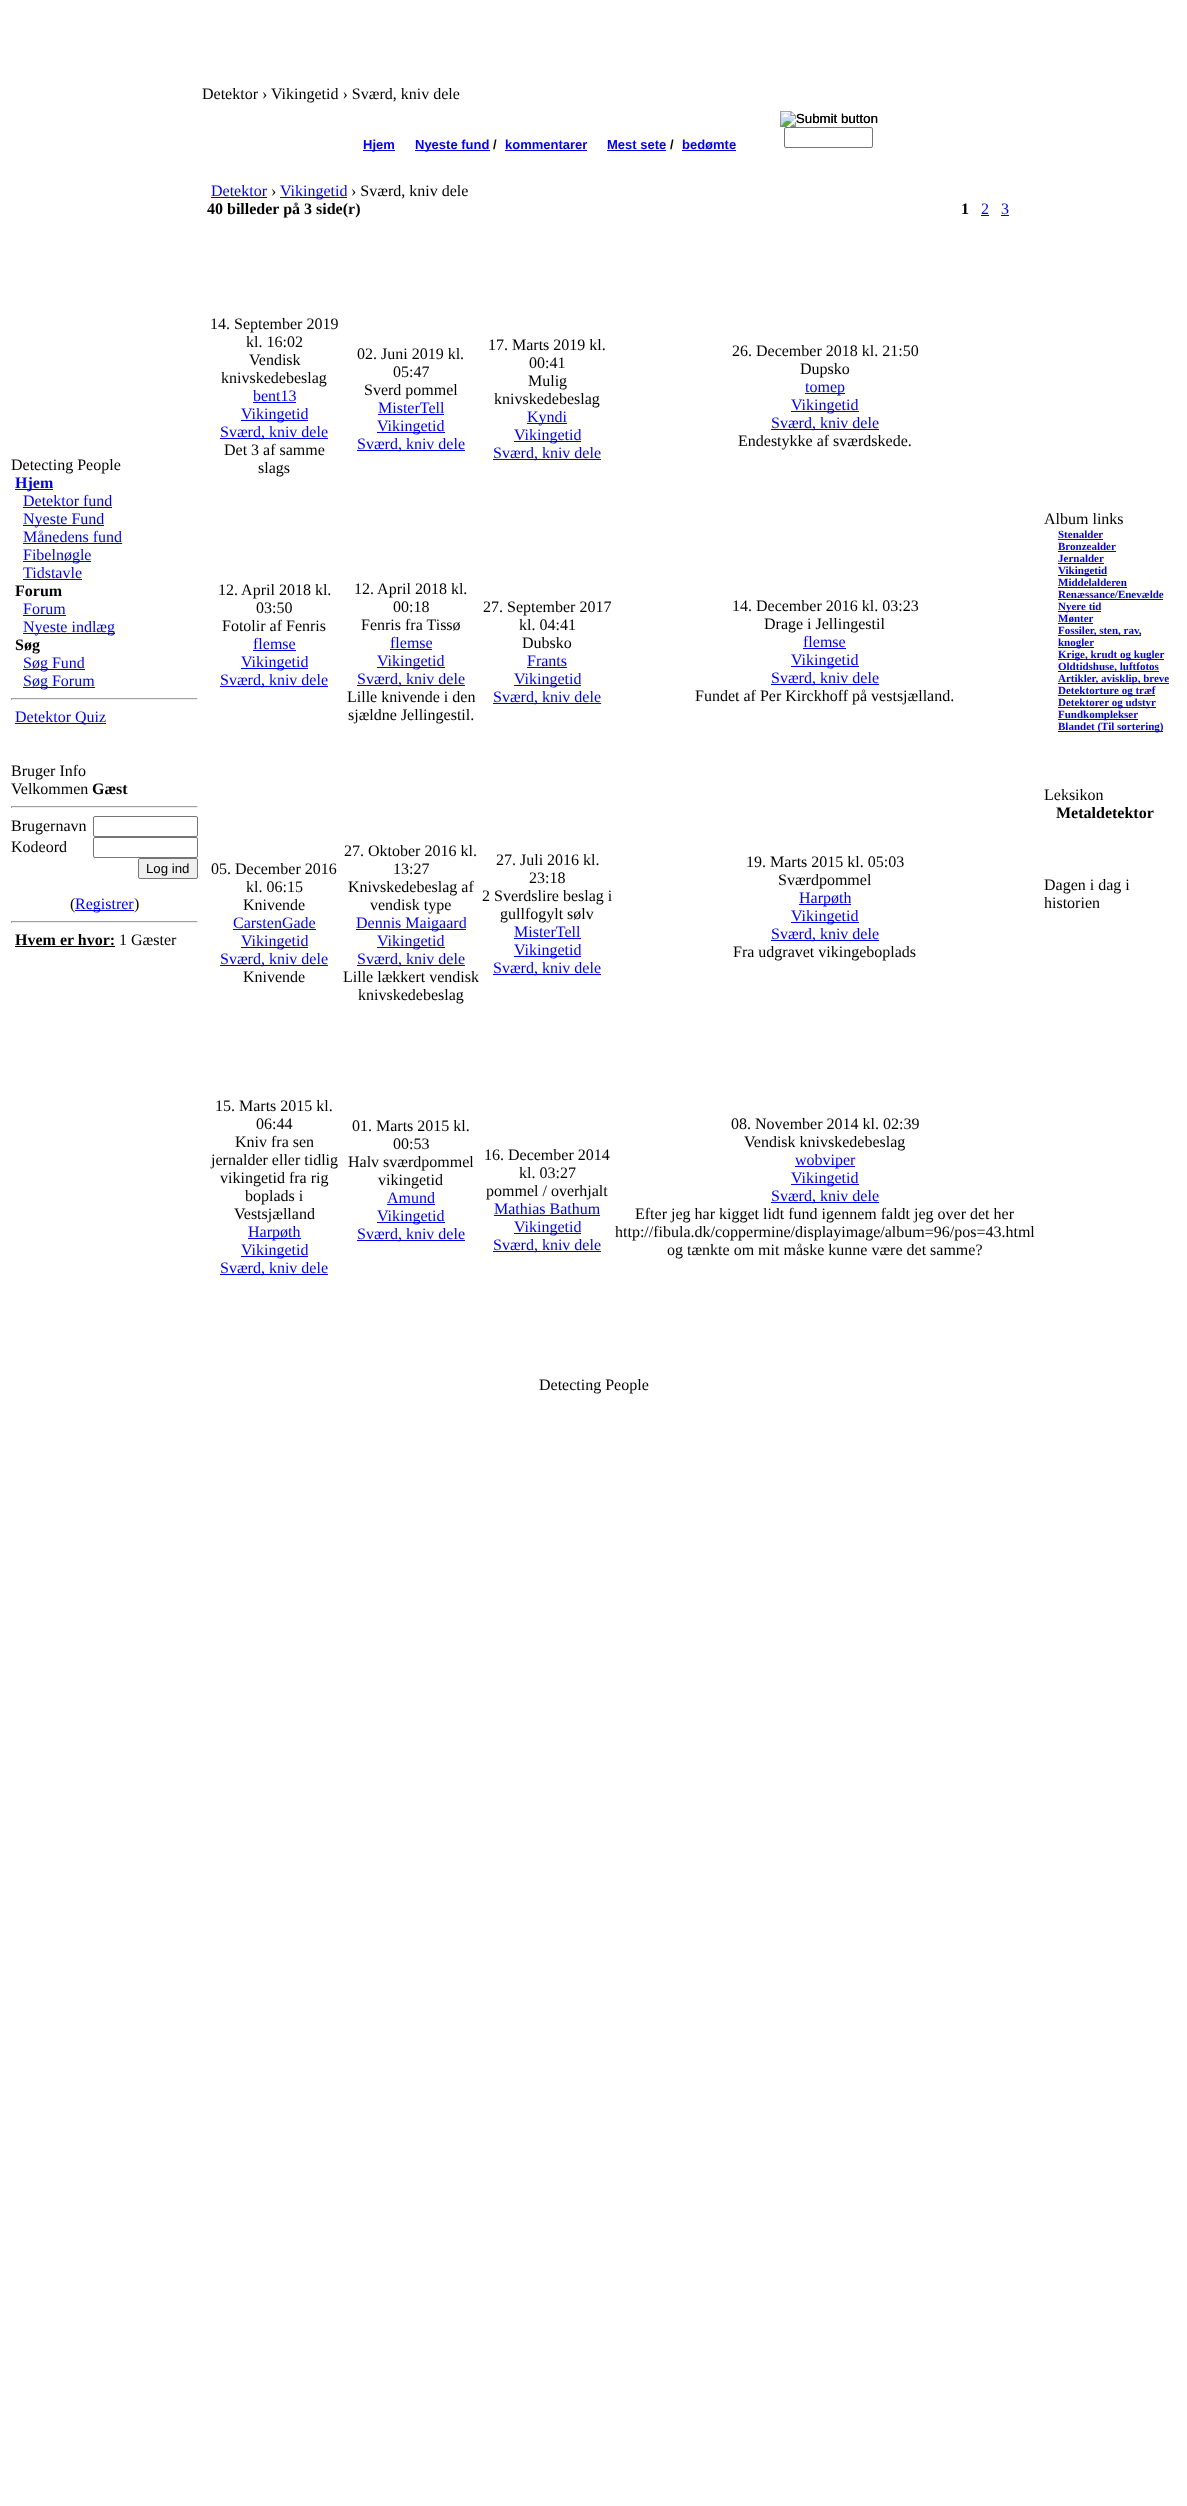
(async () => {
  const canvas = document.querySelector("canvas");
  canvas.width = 1187;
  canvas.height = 2506;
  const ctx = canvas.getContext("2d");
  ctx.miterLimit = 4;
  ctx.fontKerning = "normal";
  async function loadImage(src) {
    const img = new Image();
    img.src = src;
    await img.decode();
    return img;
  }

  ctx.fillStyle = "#ffffff";
  ctx.fillRect(0, 0, 1187, 2506);
  for (const [x, y, w, h, color] of [
    [15, 489, 38, 1, "#0000ee"],
    [23, 507, 89, 1, "#0000ee"],
    [23, 525, 81, 1, "#0000ee"],
    [23, 543, 99, 1, "#0000ee"],
    [23, 561, 68, 1, "#0000ee"],
    [23, 579, 59, 1, "#0000ee"],
    [23, 615, 43, 1, "#0000ee"],
    [23, 633, 92, 1, "#0000ee"],
    [23, 669, 62, 1, "#0000ee"],
    [23, 687, 72, 1, "#0000ee"],
    [11, 698, 187, 1, "#9f9f9f"],
    [197, 698, 1, 2, "#eeeeee"],
    [11, 699, 187, 1, "#eeeeee"],
    [11, 698, 1, 2, "#9f9f9f"],
    [15, 723, 91, 1, "#0000ee"],
    [11, 806, 187, 1, "#9f9f9f"],
    [197, 806, 1, 2, "#eeeeee"],
    [11, 807, 187, 1, "#eeeeee"],
    [11, 806, 1, 2, "#9f9f9f"],
  ]) {
    ctx.fillStyle = color;
    ctx.fillRect(x, y, w, h);
  }
  ctx.beginPath();
  ctx.roundRect(93.5, 816.5, 104, 20, 1.5);
  ctx.strokeStyle = "#767676";
  ctx.stroke();
  ctx.beginPath();
  ctx.roundRect(93.5, 837.5, 104, 20, 1.5);
  ctx.stroke();
  ctx.fillStyle = "#efefef";
  ctx.beginPath();
  ctx.roundRect(138.5, 858.5, 59, 20, 1.5);
  ctx.fill();
  ctx.stroke();
  for (const [x, y, w, h, color] of [
    [75, 910, 59, 1, "#0000ee"],
    [11, 921, 187, 1, "#9f9f9f"],
    [197, 921, 1, 2, "#eeeeee"],
    [11, 922, 187, 1, "#eeeeee"],
    [11, 921, 1, 2, "#9f9f9f"],
    [15, 946, 100, 1, "#000000"],
  ]) {
    ctx.fillStyle = color;
    ctx.fillRect(x, y, w, h);
  }
  ctx.drawImage(await loadImage("img/1.png"), 780, 111, 98, 16);
  ctx.beginPath();
  ctx.roundRect(784.5, 127.5, 88, 20, 1.5);
  ctx.stroke();
  for (const [x, y, w, h, color] of [
    [363, 150, 32, 1, "#0000ee"],
    [415, 150, 75, 1, "#0000ee"],
    [505, 150, 82, 1, "#0000ee"],
    [607, 150, 59, 1, "#0000ee"],
    [682, 150, 54, 1, "#0000ee"],
    [211, 197, 56, 1, "#0000ee"],
    [280, 197, 67, 1, "#0000ee"],
    [981, 215, 8, 1, "#0000ee"],
    [1001, 215, 8, 1, "#0000ee"],
    [253, 402, 43, 1, "#0000ee"],
    [241, 420, 67, 1, "#0000ee"],
    [220, 438, 108, 1, "#0000ee"],
    [378, 414, 66, 1, "#0000ee"],
    [377, 432, 68, 1, "#0000ee"],
    [357, 450, 108, 1, "#0000ee"],
    [527, 423, 40, 1, "#0000ee"],
    [514, 441, 67, 1, "#0000ee"],
    [493, 459, 108, 1, "#0000ee"],
    [805, 393, 40, 1, "#0000ee"],
    [791, 411, 68, 1, "#0000ee"],
    [771, 429, 108, 1, "#0000ee"],
    [253, 650, 43, 1, "#0000ee"],
    [241, 668, 67, 1, "#0000ee"],
    [220, 686, 108, 1, "#0000ee"],
    [390, 649, 42, 1, "#0000ee"],
    [377, 667, 68, 1, "#0000ee"],
    [357, 685, 108, 1, "#0000ee"],
    [527, 667, 40, 1, "#0000ee"],
    [514, 685, 67, 1, "#0000ee"],
    [493, 703, 108, 1, "#0000ee"],
    [803, 648, 43, 1, "#0000ee"],
    [791, 666, 68, 1, "#0000ee"],
    [771, 684, 108, 1, "#0000ee"],
    [233, 929, 83, 1, "#0000ee"],
    [241, 947, 67, 1, "#0000ee"],
    [220, 965, 108, 1, "#0000ee"],
    [356, 929, 110, 1, "#0000ee"],
    [377, 947, 68, 1, "#0000ee"],
    [357, 965, 108, 1, "#0000ee"],
    [514, 938, 67, 1, "#0000ee"],
    [514, 956, 67, 1, "#0000ee"],
    [493, 974, 108, 1, "#0000ee"],
    [799, 904, 52, 1, "#0000ee"],
    [791, 922, 68, 1, "#0000ee"],
    [771, 940, 108, 1, "#0000ee"],
    [248, 1238, 53, 1, "#0000ee"],
    [241, 1256, 67, 1, "#0000ee"],
    [220, 1274, 108, 1, "#0000ee"],
    [387, 1204, 48, 1, "#0000ee"],
    [377, 1222, 68, 1, "#0000ee"],
    [357, 1240, 108, 1, "#0000ee"],
    [494, 1215, 106, 1, "#0000ee"],
    [514, 1233, 67, 1, "#0000ee"],
    [493, 1251, 108, 1, "#0000ee"],
    [795, 1166, 60, 1, "#0000ee"],
    [791, 1184, 68, 1, "#0000ee"],
    [771, 1202, 108, 1, "#0000ee"],
    [1058, 539, 45, 1, "#0000ee"],
    [1058, 551, 58, 1, "#0000ee"],
    [1058, 563, 46, 1, "#0000ee"],
    [1058, 575, 49, 1, "#0000ee"],
    [1058, 587, 69, 1, "#0000ee"],
    [1058, 599, 105, 1, "#0000ee"],
    [1058, 611, 43, 1, "#0000ee"],
    [1058, 623, 35, 1, "#0000ee"],
    [1058, 635, 83, 1, "#0000ee"],
    [1058, 647, 36, 1, "#0000ee"],
    [1058, 659, 106, 1, "#0000ee"],
    [1058, 671, 101, 1, "#0000ee"],
    [1058, 683, 111, 1, "#0000ee"],
    [1058, 695, 97, 1, "#0000ee"],
    [1058, 707, 98, 1, "#0000ee"],
    [1058, 719, 80, 1, "#0000ee"],
    [1058, 731, 105, 1, "#0000ee"],
  ]) {
    ctx.fillStyle = color;
    ctx.fillRect(x, y, w, h);
  }
  ctx.font = "16px Liberation Serif";
  ctx.fillStyle = "#000000";
  ctx.fillText("Detecting People", 11, 470);
  ctx.font = "bold 16px Liberation Serif";
  ctx.fillStyle = "#0000ee";
  ctx.fillText("Hjem", 15, 488);
  ctx.font = "16px Liberation Serif";
  for (const [text, x, y] of [
    ["Detektor fund", 23, 506],
    ["Nyeste Fund", 23, 524],
    ["Månedens fund", 23, 542],
    ["Fibelnøgle", 23, 560],
    ["Tidstavle", 23, 578],
  ]) {
    ctx.fillText(text, x, y);
  }
  ctx.font = "bold 16px Liberation Serif";
  ctx.fillStyle = "#000000";
  ctx.fillText("Forum", 15, 596);
  ctx.font = "16px Liberation Serif";
  ctx.fillStyle = "#0000ee";
  ctx.fillText("Forum", 23, 614);
  ctx.fillText("Nyeste indlæg", 23, 632);
  ctx.font = "bold 16px Liberation Serif";
  ctx.fillStyle = "#000000";
  ctx.fillText("Søg", 15, 650);
  ctx.font = "16px Liberation Serif";
  ctx.fillStyle = "#0000ee";
  for (const [text, x, y] of [
    ["Søg Fund", 23, 668],
    ["Søg Forum", 23, 686],
    ["Detektor Quiz", 15, 722],
  ]) {
    ctx.fillText(text, x, y);
  }
  ctx.fillStyle = "#000000";
  ctx.fillText("Bruger Info", 11, 776);
  ctx.fillText("Velkommen", 11, 794);
  ctx.font = "bold 16px Liberation Serif";
  ctx.fillText("Gæst", 92, 794);
  ctx.font = "16px Liberation Serif";
  ctx.fillText("Brugernavn", 11, 831);
  ctx.fillText("Kodeord", 11, 852);
  ctx.font = "13.25px Liberation Sans";
  ctx.fillText("Log ind", 146, 873);
  ctx.font = "16px Liberation Serif";
  ctx.fillText("(", 70, 909);
  ctx.fillStyle = "#0000ee";
  ctx.fillText("Registrer", 75, 909);
  ctx.fillStyle = "#000000";
  ctx.fillText(")", 134, 909);
  ctx.font = "bold 16px Liberation Serif";
  ctx.fillText("Hvem er hvor:", 15, 945);
  ctx.font = "16px Liberation Serif";
  ctx.fillText("1 Gæster", 119, 945);
  ctx.fillText("Detektor › Vikingetid › Sværd, kniv dele", 202, 99);
  ctx.font = "13.25px Liberation Sans";
  ctx.fillText("Submit button", 796, 123);
  ctx.font = "bold 13px Liberation Sans";
  ctx.fillStyle = "#0000ee";
  ctx.fillText("Hjem", 363, 149);
  ctx.fillText("Nyeste fund", 415, 149);
  ctx.fillStyle = "#000000";
  ctx.fillText("/", 493, 149);
  ctx.fillStyle = "#0000ee";
  ctx.fillText("kommentarer", 505, 149);
  ctx.fillText("Mest sete", 607, 149);
  ctx.fillStyle = "#000000";
  ctx.fillText("/", 670, 149);
  ctx.fillStyle = "#0000ee";
  ctx.fillText("bedømte", 682, 149);
  ctx.font = "16px Liberation Serif";
  ctx.fillText("Detektor", 211, 196);
  ctx.fillStyle = "#000000";
  ctx.fillText("›", 271, 196);
  ctx.fillStyle = "#0000ee";
  ctx.fillText("Vikingetid", 280, 196);
  ctx.fillStyle = "#000000";
  ctx.fillText("› Sværd, kniv dele", 351, 196);
  ctx.font = "bold 16px Liberation Serif";
  ctx.fillText("40 billeder på 3 side(r)", 207, 214);
  ctx.fillText("1", 961, 214);
  ctx.font = "16px Liberation Serif";
  ctx.fillStyle = "#0000ee";
  ctx.fillText("2", 981, 214);
  ctx.fillText("3", 1001, 214);
  ctx.fillStyle = "#000000";
  for (const [text, x, y] of [
    ["14. September 2019", 210, 329],
    ["kl. 16:02", 246, 347],
    ["Vendisk", 249, 365],
    ["knivskedebeslag", 221, 383],
  ]) {
    ctx.fillText(text, x, y);
  }
  ctx.fillStyle = "#0000ee";
  for (const [text, x, y] of [
    ["bent13", 253, 401],
    ["Vikingetid", 241, 419],
    ["Sværd, kniv dele", 220, 437],
  ]) {
    ctx.fillText(text, x, y);
  }
  ctx.fillStyle = "#000000";
  for (const [text, x, y] of [
    ["Det 3 af samme", 224, 455],
    ["slags", 258, 473],
    ["02. Juni 2019 kl.", 357, 359],
    ["05:47", 393, 377],
    ["Sverd pommel", 364, 395],
  ]) {
    ctx.fillText(text, x, y);
  }
  ctx.fillStyle = "#0000ee";
  for (const [text, x, y] of [
    ["MisterTell", 378, 413],
    ["Vikingetid", 377, 431],
    ["Sværd, kniv dele", 357, 449],
  ]) {
    ctx.fillText(text, x, y);
  }
  ctx.fillStyle = "#000000";
  for (const [text, x, y] of [
    ["17. Marts 2019 kl.", 488, 350],
    ["00:41", 529, 368],
    ["Mulig", 528, 386],
    ["knivskedebeslag", 494, 404],
  ]) {
    ctx.fillText(text, x, y);
  }
  ctx.fillStyle = "#0000ee";
  for (const [text, x, y] of [
    ["Kyndi", 527, 422],
    ["Vikingetid", 514, 440],
    ["Sværd, kniv dele", 493, 458],
  ]) {
    ctx.fillText(text, x, y);
  }
  ctx.fillStyle = "#000000";
  ctx.fillText("26. December 2018 kl. 21:50", 732, 356);
  ctx.fillText("Dupsko", 800, 374);
  ctx.fillStyle = "#0000ee";
  for (const [text, x, y] of [
    ["tomep", 805, 392],
    ["Vikingetid", 791, 410],
    ["Sværd, kniv dele", 771, 428],
  ]) {
    ctx.fillText(text, x, y);
  }
  ctx.fillStyle = "#000000";
  for (const [text, x, y] of [
    ["Endestykke af sværdskede.", 738, 446],
    ["12. April 2018 kl.", 218, 595],
    ["03:50", 256, 613],
    ["Fotolir af Fenris", 222, 631],
  ]) {
    ctx.fillText(text, x, y);
  }
  ctx.fillStyle = "#0000ee";
  for (const [text, x, y] of [
    ["flemse", 253, 649],
    ["Vikingetid", 241, 667],
    ["Sværd, kniv dele", 220, 685],
  ]) {
    ctx.fillText(text, x, y);
  }
  ctx.fillStyle = "#000000";
  for (const [text, x, y] of [
    ["12. April 2018 kl.", 354, 594],
    ["00:18", 393, 612],
    ["Fenris fra Tissø", 361, 630],
  ]) {
    ctx.fillText(text, x, y);
  }
  ctx.fillStyle = "#0000ee";
  for (const [text, x, y] of [
    ["flemse", 390, 648],
    ["Vikingetid", 377, 666],
    ["Sværd, kniv dele", 357, 684],
  ]) {
    ctx.fillText(text, x, y);
  }
  ctx.fillStyle = "#000000";
  for (const [text, x, y] of [
    ["Lille knivende i den", 347, 702],
    ["sjældne Jellingestil.", 348, 720],
    ["27. September 2017", 483, 612],
    ["kl. 04:41", 519, 630],
    ["Dubsko", 522, 648],
  ]) {
    ctx.fillText(text, x, y);
  }
  ctx.fillStyle = "#0000ee";
  for (const [text, x, y] of [
    ["Frants", 527, 666],
    ["Vikingetid", 514, 684],
    ["Sværd, kniv dele", 493, 702],
  ]) {
    ctx.fillText(text, x, y);
  }
  ctx.fillStyle = "#000000";
  ctx.fillText("14. December 2016 kl. 03:23", 732, 611);
  ctx.fillText("Drage i Jellingestil", 764, 629);
  ctx.fillStyle = "#0000ee";
  for (const [text, x, y] of [
    ["flemse", 803, 647],
    ["Vikingetid", 791, 665],
    ["Sværd, kniv dele", 771, 683],
  ]) {
    ctx.fillText(text, x, y);
  }
  ctx.fillStyle = "#000000";
  for (const [text, x, y] of [
    ["Fundet af Per Kirckhoff på vestsjælland.", 695, 701],
    ["05. December 2016", 211, 874],
    ["kl. 06:15", 246, 892],
    ["Knivende", 243, 910],
  ]) {
    ctx.fillText(text, x, y);
  }
  ctx.fillStyle = "#0000ee";
  for (const [text, x, y] of [
    ["CarstenGade", 233, 928],
    ["Vikingetid", 241, 946],
    ["Sværd, kniv dele", 220, 964],
  ]) {
    ctx.fillText(text, x, y);
  }
  ctx.fillStyle = "#000000";
  for (const [text, x, y] of [
    ["Knivende", 243, 982],
    ["27. Oktober 2016 kl.", 344, 856],
    ["13:27", 393, 874],
    ["Knivskedebeslag af", 348, 892],
    ["vendisk type", 370, 910],
  ]) {
    ctx.fillText(text, x, y);
  }
  ctx.fillStyle = "#0000ee";
  for (const [text, x, y] of [
    ["Dennis Maigaard", 356, 928],
    ["Vikingetid", 377, 946],
    ["Sværd, kniv dele", 357, 964],
  ]) {
    ctx.fillText(text, x, y);
  }
  ctx.fillStyle = "#000000";
  for (const [text, x, y] of [
    ["Lille lækkert vendisk", 343, 982],
    ["knivskedebeslag", 358, 1000],
    ["27. Juli 2016 kl.", 496, 865],
    ["23:18", 529, 883],
    ["2 Sverdslire beslag i", 482, 901],
    ["gullfogylt sølv", 500, 919],
  ]) {
    ctx.fillText(text, x, y);
  }
  ctx.fillStyle = "#0000ee";
  for (const [text, x, y] of [
    ["MisterTell", 514, 937],
    ["Vikingetid", 514, 955],
    ["Sværd, kniv dele", 493, 973],
  ]) {
    ctx.fillText(text, x, y);
  }
  ctx.fillStyle = "#000000";
  ctx.fillText("19. Marts 2015 kl. 05:03", 746, 867);
  ctx.fillText("Sværdpommel", 778, 885);
  ctx.fillStyle = "#0000ee";
  for (const [text, x, y] of [
    ["Harpøth", 799, 903],
    ["Vikingetid", 791, 921],
    ["Sværd, kniv dele", 771, 939],
  ]) {
    ctx.fillText(text, x, y);
  }
  ctx.fillStyle = "#000000";
  for (const [text, x, y] of [
    ["Fra udgravet vikingeboplads", 733, 957],
    ["15. Marts 2015 kl.", 215, 1111],
    ["06:44", 256, 1129],
    ["Kniv fra sen", 235, 1147],
    ["jernalder eller tidlig", 211, 1165],
    ["vikingetid fra rig", 220, 1183],
    ["boplads i", 245, 1201],
    ["Vestsjælland", 234, 1219],
  ]) {
    ctx.fillText(text, x, y);
  }
  ctx.fillStyle = "#0000ee";
  for (const [text, x, y] of [
    ["Harpøth", 248, 1237],
    ["Vikingetid", 241, 1255],
    ["Sværd, kniv dele", 220, 1273],
  ]) {
    ctx.fillText(text, x, y);
  }
  ctx.fillStyle = "#000000";
  for (const [text, x, y] of [
    ["01. Marts 2015 kl.", 352, 1131],
    ["00:53", 393, 1149],
    ["Halv sværdpommel", 348, 1167],
    ["vikingetid", 378, 1185],
  ]) {
    ctx.fillText(text, x, y);
  }
  ctx.fillStyle = "#0000ee";
  for (const [text, x, y] of [
    ["Amund", 387, 1203],
    ["Vikingetid", 377, 1221],
    ["Sværd, kniv dele", 357, 1239],
  ]) {
    ctx.fillText(text, x, y);
  }
  ctx.fillStyle = "#000000";
  for (const [text, x, y] of [
    ["16. December 2014", 484, 1160],
    ["kl. 03:27", 519, 1178],
    ["pommel / overhjalt", 486, 1196],
  ]) {
    ctx.fillText(text, x, y);
  }
  ctx.fillStyle = "#0000ee";
  for (const [text, x, y] of [
    ["Mathias Bathum", 494, 1214],
    ["Vikingetid", 514, 1232],
    ["Sværd, kniv dele", 493, 1250],
  ]) {
    ctx.fillText(text, x, y);
  }
  ctx.fillStyle = "#000000";
  ctx.fillText("08. November 2014 kl. 02:39", 731, 1129);
  ctx.fillText("Vendisk knivskedebeslag", 744, 1147);
  ctx.fillStyle = "#0000ee";
  for (const [text, x, y] of [
    ["wobviper", 795, 1165],
    ["Vikingetid", 791, 1183],
    ["Sværd, kniv dele", 771, 1201],
  ]) {
    ctx.fillText(text, x, y);
  }
  ctx.fillStyle = "#000000";
  for (const [text, x, y] of [
    ["Efter jeg har kigget lidt fund igennem faldt jeg over det her", 635, 1219],
    ["http://fibula.dk/coppermine/displayimage/album=96/pos=43.html", 615, 1237],
    ["og tænkte om mit måske kunne være det samme?", 667, 1255],
    ["Album links", 1044, 524],
  ]) {
    ctx.fillText(text, x, y);
  }
  ctx.font = "bold 11px Liberation Serif";
  ctx.fillStyle = "#0000ee";
  for (const [text, x, y] of [
    ["Stenalder", 1058, 538],
    ["Bronzealder", 1058, 550],
    ["Jernalder", 1058, 562],
    ["Vikingetid", 1058, 574],
    ["Middelalderen", 1058, 586],
    ["Renæssance/Enevælde", 1058, 598],
    ["Nyere tid", 1058, 610],
    ["Mønter", 1058, 622],
    ["Fossiler, sten, rav,", 1058, 634],
    ["knogler", 1058, 646],
    ["Krige, krudt og kugler", 1058, 658],
    ["Oldtidshuse, luftfotos", 1058, 670],
    ["Artikler, avisklip, breve", 1058, 682],
    ["Detektorture og træf", 1058, 694],
    ["Detektorer og udstyr", 1058, 706],
    ["Fundkomplekser", 1058, 718],
    ["Blandet (Til sortering)", 1058, 730],
  ]) {
    ctx.fillText(text, x, y);
  }
  ctx.font = "16px Liberation Serif";
  ctx.fillStyle = "#000000";
  ctx.fillText("Leksikon", 1044, 800);
  ctx.font = "bold 16px Liberation Serif";
  ctx.fillText("Metaldetektor", 1056, 818);
  ctx.font = "16px Liberation Serif";
  for (const [text, x, y] of [
    ["Dagen i dag i", 1044, 890],
    ["historien", 1044, 908],
    ["Detecting People", 539, 1390],
  ]) {
    ctx.fillText(text, x, y);
  }
})();
